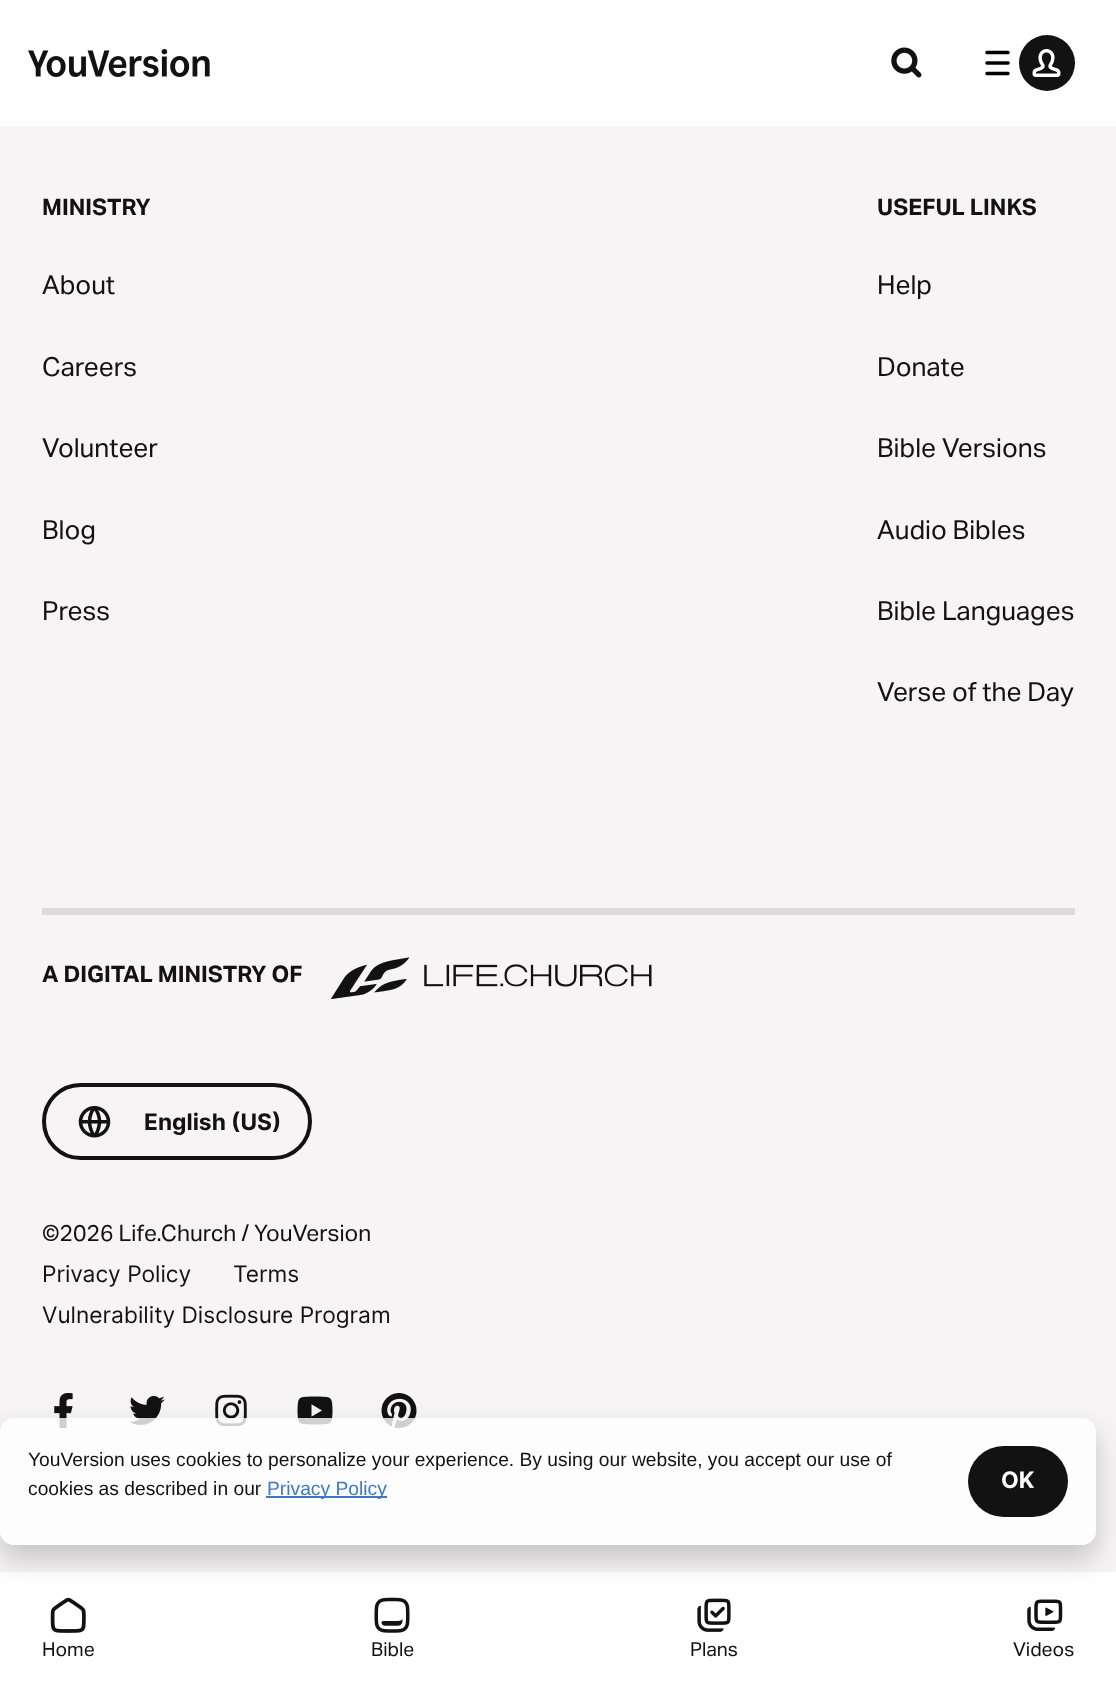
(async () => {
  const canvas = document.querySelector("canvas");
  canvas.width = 1116;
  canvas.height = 1684;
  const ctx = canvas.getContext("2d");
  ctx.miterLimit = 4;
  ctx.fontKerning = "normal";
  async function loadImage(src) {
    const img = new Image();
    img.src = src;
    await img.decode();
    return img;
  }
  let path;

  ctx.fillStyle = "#ffffff";
  ctx.fillRect(0, 0, 1116, 1684);
  ctx.drawImage(await loadImage("img/1.png"), 28, 49, 182, 28);
  ctx.drawImage(await loadImage("img/2.png"), 891, 47, 31, 31);
  ctx.drawImage(await loadImage("img/3.png"), 985, 50, 25, 26);
  ctx.fillStyle = "#121212";
  ctx.beginPath();
  ctx.arc(1047, 63, 28, 0, Math.PI * 2);
  ctx.fill();
  ctx.drawImage(await loadImage("img/4.png"), 1032, 49, 29, 28);
  ctx.fillStyle = "#f6f4f4";
  ctx.fillRect(0, 126, 1116, 1446);
  ctx.fillStyle = "#dddbdb";
  ctx.fillRect(42, 908, 1033, 7);
  ctx.drawImage(await loadImage("img/5.png"), 331, 957, 321, 42);
  ctx.beginPath();
  ctx.roundRect(44, 1085, 266, 73, 36.5);
  ctx.strokeStyle = "#121212";
  ctx.lineWidth = 4;
  ctx.stroke();
  ctx.drawImage(await loadImage("img/6.png"), 78, 1106, 33, 32);
  ctx.drawImage(await loadImage("img/7.png"), 54, 1393, 19, 35);
  ctx.drawImage(await loadImage("img/8.png"), 129, 1395, 36, 30);
  ctx.drawImage(await loadImage("img/9.png"), 215, 1394, 32, 33);
  ctx.drawImage(await loadImage("img/10.png"), 297, 1396, 36, 29);
  ctx.drawImage(await loadImage("img/11.png"), 381, 1393, 36, 35);
  ctx.drawImage(await loadImage("img/12.png"), 50, 1597, 36, 36);
  ctx.drawImage(await loadImage("img/13.png"), 374, 1597, 36, 36);
  ctx.drawImage(await loadImage("img/14.png"), 697, 1598, 34, 34);
  ctx.drawImage(await loadImage("img/15.png"), 1027, 1599, 36, 32);
  ctx.save();
  path = new Path2D("M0 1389H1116V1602H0ZM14 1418H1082C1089.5 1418 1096 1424.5 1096 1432V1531C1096 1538.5 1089.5 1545 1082 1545H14C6.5 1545 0 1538.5 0 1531V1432C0 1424.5 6.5 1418 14 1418Z");
  ctx.clip(path, "evenodd");
  ctx.fillStyle = "rgba(0, 0, 0, 0.2)";
  ctx.filter = "blur(14px)";
  ctx.beginPath();
  ctx.roundRect(0, 1432, 1096, 127, 14);
  ctx.fill();
  ctx.filter = "none";
  ctx.restore();
  ctx.fillStyle = "rgba(255, 255, 255, 0.8)";
  ctx.beginPath();
  ctx.roundRect(0, 1418, 1096, 127, 14);
  ctx.fill();
  ctx.fillStyle = "#3d79c2";
  ctx.fillRect(266, 1496, 121, 2);
  ctx.fillStyle = "#121212";
  ctx.beginPath();
  ctx.roundRect(968, 1446, 100, 71, 35.5);
  ctx.fill();
  ctx.font = "bold 22.75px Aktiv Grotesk";
  ctx.fillText("MINISTRY", 42, 215);
  ctx.font = "26.25px Aktiv Grotesk";
  for (const [text, x, y] of [
    ["About", 42, 294],
    ["Careers", 42, 376],
    ["Volunteer", 42, 457],
    ["Blog", 42, 539],
    ["Press", 42, 620],
  ]) {
    ctx.fillText(text, x, y);
  }
  ctx.font = "bold 22.75px Aktiv Grotesk";
  ctx.fillText("USEFUL LINKS", 877, 215);
  ctx.font = "26.25px Aktiv Grotesk";
  for (const [text, x, y] of [
    ["Help", 877, 294],
    ["Donate", 877, 376],
    ["Bible Versions", 877, 457],
    ["Audio Bibles", 877, 539],
    ["Bible Languages", 877, 620],
    ["Verse of the Day", 877, 701],
  ]) {
    ctx.fillText(text, x, y);
  }
  ctx.font = "bold 22.75px Aktiv Grotesk";
  ctx.fillText("A DIGITAL MINISTRY OF", 42, 982);
  ctx.font = "bold 22.75px Inter";
  ctx.fillText("English (US)", 144, 1130);
  ctx.font = "22.75px Aktiv Grotesk";
  ctx.fillText("©2026 Life.Church / YouVersion", 42, 1241);
  ctx.font = "22.75px Inter";
  for (const [text, x, y] of [
    ["Privacy Policy", 42, 1282],
    ["Terms", 233, 1282],
    ["Vulnerability Disclosure Program", 42, 1323],
  ]) {
    ctx.fillText(text, x, y);
  }
  ctx.font = "19.25px Liberation Sans";
  ctx.fillText("YouVersion uses cookies to personalize your experience. By using our website, you accept our use of", 28, 1466);
  ctx.fillText("cookies as described in our", 28, 1495);
  ctx.fillStyle = "#3d79c2";
  ctx.fillText("Privacy Policy", 267, 1495);
  ctx.font = "bold 22.75px Inter";
  ctx.fillStyle = "#ffffff";
  ctx.fillText("OK", 1001, 1488);
  ctx.font = "19.25px Aktiv Grotesk";
  ctx.fillStyle = "#121212";
  for (const [text, x, y] of [
    ["Home", 42, 1656],
    ["Bible", 371, 1656],
    ["Plans", 690, 1656],
    ["Videos", 1013, 1656],
  ]) {
    ctx.fillText(text, x, y);
  }
})();
